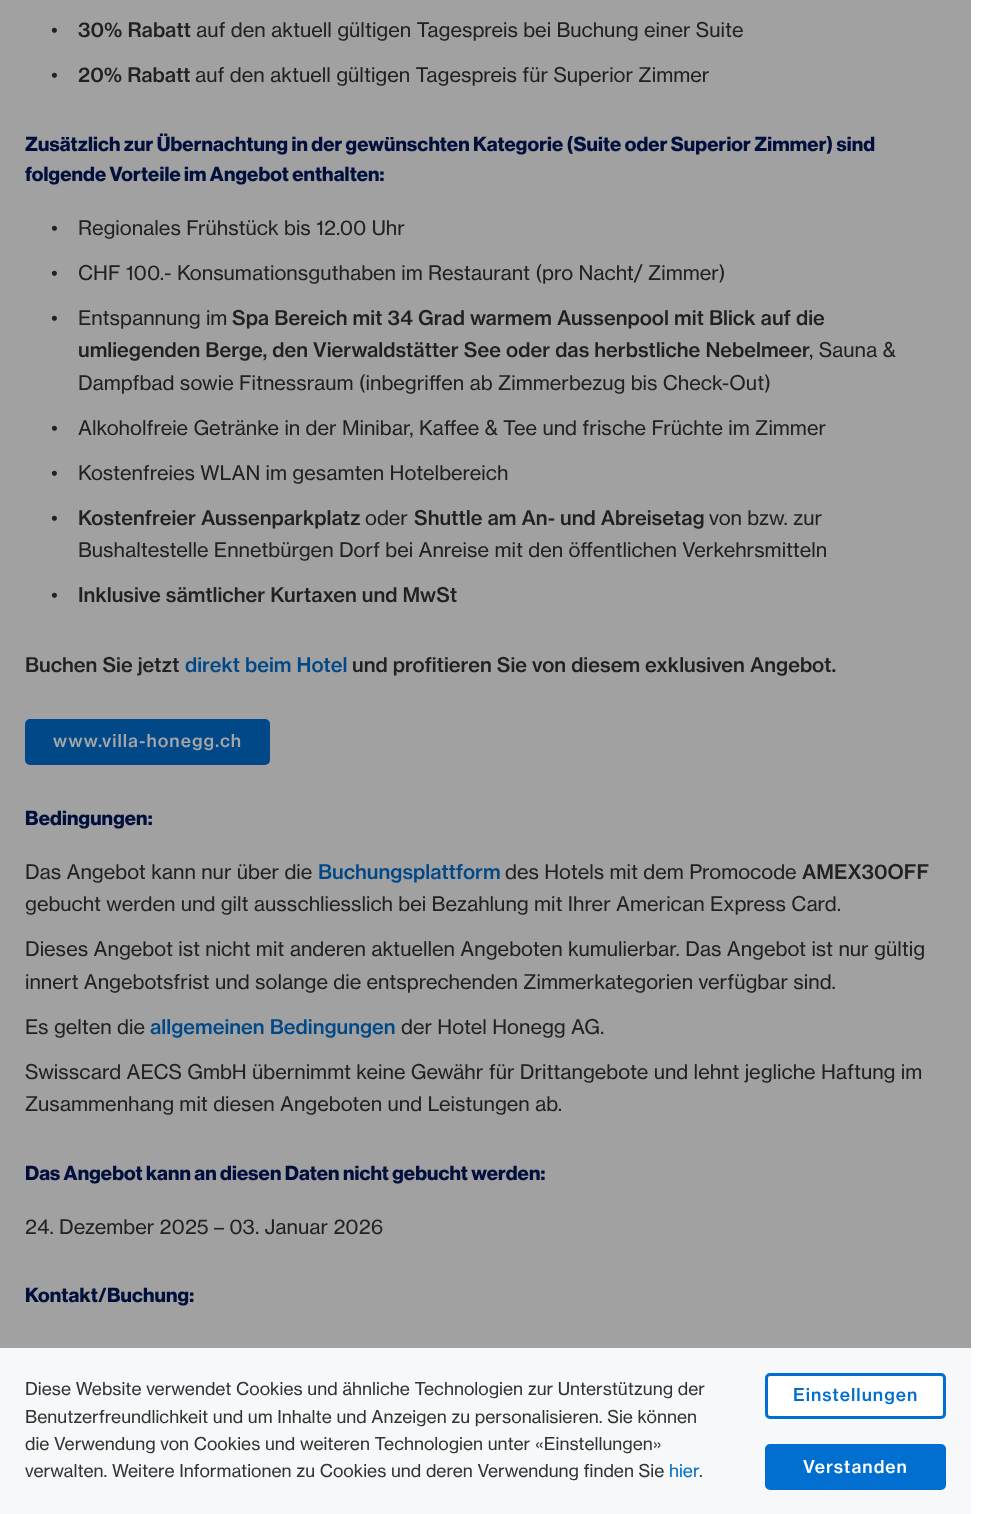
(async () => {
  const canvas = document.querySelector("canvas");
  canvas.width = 990;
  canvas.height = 1514;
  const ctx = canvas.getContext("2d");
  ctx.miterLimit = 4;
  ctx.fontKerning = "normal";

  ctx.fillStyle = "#ffffff";
  ctx.fillRect(0, 0, 990, 1514);
  ctx.fillStyle = "#a1a1a2";
  ctx.fillRect(0, 0, 971, 1348);
  ctx.fillStyle = "#004887";
  ctx.beginPath();
  ctx.roundRect(26.5, 720.5, 242, 43, 3.5);
  ctx.fill();
  ctx.strokeStyle = "#004887";
  ctx.lineWidth = 3;
  ctx.stroke();
  ctx.fillStyle = "#f7f8f9";
  ctx.fillRect(0, 1348, 971, 166);
  ctx.fillStyle = "#ffffff";
  ctx.beginPath();
  ctx.roundRect(766.5, 1374.5, 178, 43, 3.5);
  ctx.fill();
  ctx.strokeStyle = "#006fcf";
  ctx.stroke();
  ctx.fillStyle = "#006fcf";
  ctx.beginPath();
  ctx.roundRect(766.5, 1445.5, 178, 43, 3.5);
  ctx.fill();
  ctx.stroke();
  ctx.font = "20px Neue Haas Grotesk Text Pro";
  ctx.fillStyle = "#212121";
  ctx.fillText("•", 51, 37);
  ctx.font = "500 20px Neue Haas Grotesk Text Pro";
  ctx.fillText("30% Rabatt", 78, 37);
  ctx.font = "20px Neue Haas Grotesk Text Pro";
  ctx.fillText("auf den aktuell gültigen Tagespreis bei Buchung einer Suite", 196, 37);
  ctx.fillText("•", 51, 82);
  ctx.font = "500 20px Neue Haas Grotesk Text Pro";
  ctx.fillText("20% Rabatt", 78, 82);
  ctx.font = "20px Neue Haas Grotesk Text Pro";
  ctx.fillText("auf den aktuell gültigen Tagespreis für Superior Zimmer", 195, 82);
  ctx.letterSpacing = "0.15px";
  ctx.font = "bold 20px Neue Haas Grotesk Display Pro";
  ctx.fillStyle = "#000f3b";
  ctx.fillText("Zusätzlich zur Übernachtung in der gewünschten Kategorie (Suite oder Superior Zimmer) sind", 25, 151);
  ctx.fillText("folgende Vorteile im Angebot enthalten:", 25, 181);
  ctx.letterSpacing = "0px";
  ctx.font = "20px Neue Haas Grotesk Text Pro";
  ctx.fillStyle = "#212121";
  for (const [text, x, y] of [
    ["•", 51, 235],
    ["Regionales Frühstück bis 12.00 Uhr", 78, 235],
    ["•", 51, 280],
    ["CHF 100.- Konsumationsguthaben im Restaurant (pro Nacht/ Zimmer)", 78, 280],
    ["•", 51, 325],
    ["Entspannung im", 78, 325],
  ]) {
    ctx.fillText(text, x, y);
  }
  ctx.font = "500 20px Neue Haas Grotesk Text Pro";
  ctx.fillText("Spa Bereich mit 34 Grad warmem Aussenpool mit Blick auf die", 232, 325);
  ctx.fillText("umliegenden Berge, den Vierwaldstätter See oder das herbstliche Nebelmeer", 78, 357);
  ctx.font = "20px Neue Haas Grotesk Text Pro";
  for (const [text, x, y] of [
    [", Sauna &", 809, 357],
    ["Dampfbad sowie Fitnessraum (inbegriffen ab Zimmerbezug bis Check-Out)", 78, 390],
    ["•", 51, 435],
    ["Alkoholfreie Getränke in der Minibar, Kaffee & Tee und frische Früchte im Zimmer", 78, 435],
    ["•", 51, 480],
    ["Kostenfreies WLAN im gesamten Hotelbereich", 78, 480],
    ["•", 51, 525],
  ]) {
    ctx.fillText(text, x, y);
  }
  ctx.font = "500 20px Neue Haas Grotesk Text Pro";
  ctx.fillText("Kostenfreier Aussenparkplatz", 78, 525);
  ctx.font = "20px Neue Haas Grotesk Text Pro";
  ctx.fillText("oder", 365, 525);
  ctx.font = "500 20px Neue Haas Grotesk Text Pro";
  ctx.fillText("Shuttle am An- und Abreisetag", 414, 525);
  ctx.font = "20px Neue Haas Grotesk Text Pro";
  for (const [text, x, y] of [
    ["von bzw. zur", 709, 525],
    ["Bushaltestelle Ennetbürgen Dorf bei Anreise mit den öffentlichen Verkehrsmitteln", 78, 557],
    ["•", 51, 602],
  ]) {
    ctx.fillText(text, x, y);
  }
  ctx.font = "500 20px Neue Haas Grotesk Text Pro";
  ctx.fillText("Inklusive sämtlicher Kurtaxen und MwSt", 78, 602);
  ctx.fillText("Buchen Sie jetzt", 25, 672);
  ctx.fillStyle = "#004887";
  ctx.fillText("direkt beim Hotel", 185, 672);
  ctx.fillStyle = "#212121";
  ctx.fillText("und profitieren Sie von diesem exklusiven Angebot.", 352, 672);
  ctx.letterSpacing = "1px";
  ctx.font = "500 17.5px Neue Haas Grotesk Text Pro";
  ctx.fillStyle = "#a6a6a6";
  ctx.fillText("www.villa-honegg.ch", 53, 747);
  ctx.letterSpacing = "0.15px";
  ctx.font = "bold 20px Neue Haas Grotesk Display Pro";
  ctx.fillStyle = "#000f3b";
  ctx.fillText("Bedingungen:", 25, 825);
  ctx.letterSpacing = "0px";
  ctx.font = "20px Neue Haas Grotesk Text Pro";
  ctx.fillStyle = "#212121";
  ctx.fillText("Das Angebot kann nur über die", 25, 879);
  ctx.font = "500 20px Neue Haas Grotesk Text Pro";
  ctx.fillStyle = "#004887";
  ctx.fillText("Buchungsplattform", 318, 879);
  ctx.font = "20px Neue Haas Grotesk Text Pro";
  ctx.fillStyle = "#212121";
  ctx.fillText("des Hotels mit dem Promocode", 505, 879);
  ctx.font = "500 20px Neue Haas Grotesk Text Pro";
  ctx.fillText("AMEX30OFF", 802, 879);
  ctx.font = "20px Neue Haas Grotesk Text Pro";
  for (const [text, x, y] of [
    ["gebucht werden und gilt ausschliesslich bei Bezahlung mit Ihrer American Express Card.", 25, 911],
    ["Dieses Angebot ist nicht mit anderen aktuellen Angeboten kumulierbar. Das Angebot ist nur gültig", 25, 956],
    ["innert Angebotsfrist und solange die entsprechenden Zimmerkategorien verfügbar sind.", 25, 989],
    ["Es gelten die", 25, 1034],
  ]) {
    ctx.fillText(text, x, y);
  }
  ctx.font = "500 20px Neue Haas Grotesk Text Pro";
  ctx.fillStyle = "#004887";
  ctx.fillText("allgemeinen Bedingungen", 150, 1034);
  ctx.font = "20px Neue Haas Grotesk Text Pro";
  ctx.fillStyle = "#212121";
  for (const [text, x, y] of [
    ["der Hotel Honegg AG.", 401, 1034],
    ["Swisscard AECS GmbH übernimmt keine Gewähr für Drittangebote und lehnt jegliche Haftung im", 25, 1079],
    ["Zusammenhang mit diesen Angeboten und Leistungen ab.", 25, 1111],
  ]) {
    ctx.fillText(text, x, y);
  }
  ctx.letterSpacing = "0.15px";
  ctx.font = "bold 20px Neue Haas Grotesk Display Pro";
  ctx.fillStyle = "#000f3b";
  ctx.fillText("Das Angebot kann an diesen Daten nicht gebucht werden:", 25, 1180);
  ctx.letterSpacing = "0px";
  ctx.font = "20px Neue Haas Grotesk Text Pro";
  ctx.fillStyle = "#212121";
  ctx.fillText("24. Dezember 2025 – 03. Januar 2026", 25, 1234);
  ctx.letterSpacing = "0.15px";
  ctx.font = "bold 20px Neue Haas Grotesk Display Pro";
  ctx.fillStyle = "#000f3b";
  ctx.fillText("Kontakt/Buchung:", 25, 1302);
  ctx.letterSpacing = "0px";
  ctx.font = "17.5px Neue Haas Grotesk Text Pro";
  ctx.fillStyle = "#333333";
  for (const [text, x, y] of [
    ["Diese Website verwendet Cookies und ähnliche Technologien zur Unterstützung der", 25, 1395],
    ["Benutzerfreundlichkeit und um Inhalte und Anzeigen zu personalisieren. Sie können", 25, 1423],
    ["die Verwendung von Cookies und weiteren Technologien unter «Einstellungen»", 25, 1450],
    ["verwalten. Weitere Informationen zu Cookies und deren Verwendung finden Sie", 25, 1477],
  ]) {
    ctx.fillText(text, x, y);
  }
  ctx.fillStyle = "#006fcf";
  ctx.fillText("hier", 669, 1477);
  ctx.fillStyle = "#333333";
  ctx.fillText(".", 699, 1477);
  ctx.letterSpacing = "1px";
  ctx.font = "500 17.5px Neue Haas Grotesk Text Pro";
  ctx.fillStyle = "#006fcf";
  ctx.fillText("Einstellungen", 793, 1401);
  ctx.fillStyle = "#ffffff";
  ctx.fillText("Verstanden", 803, 1473);
})();
